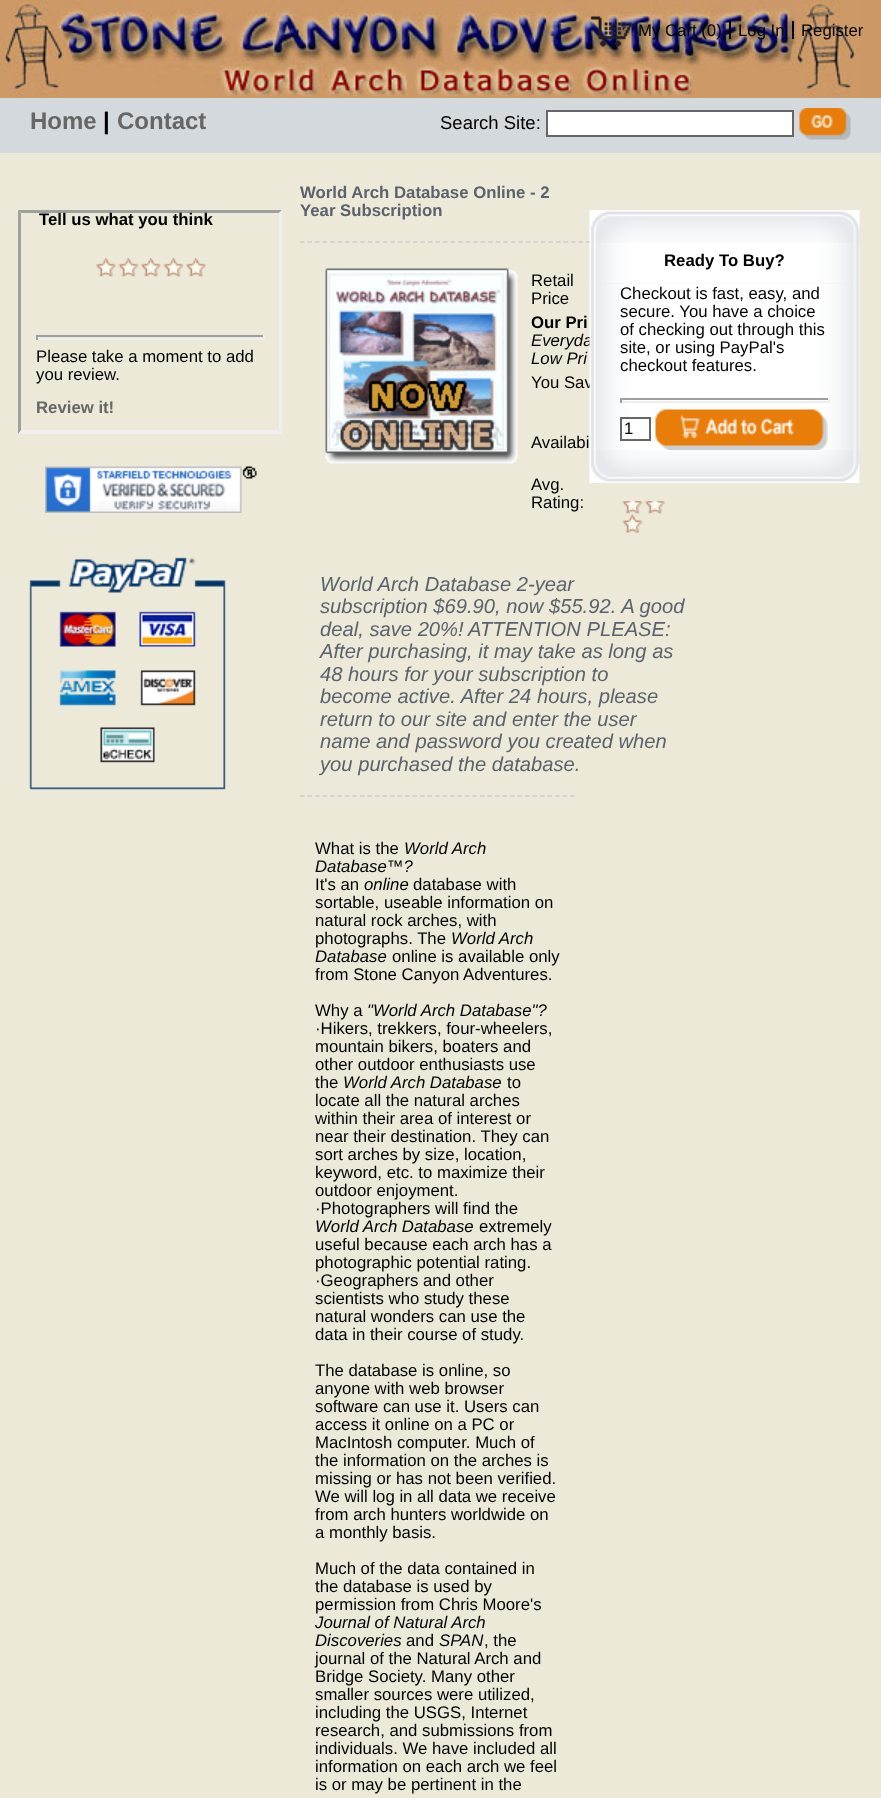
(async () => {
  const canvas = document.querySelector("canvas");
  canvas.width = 881;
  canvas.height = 1798;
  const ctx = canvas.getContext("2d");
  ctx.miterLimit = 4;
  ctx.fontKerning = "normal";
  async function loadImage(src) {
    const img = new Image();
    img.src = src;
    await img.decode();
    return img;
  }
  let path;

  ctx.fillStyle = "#ece9d8";
  ctx.fillRect(0, 0, 881, 1798);
  ctx.fillStyle = "#cc9966";
  ctx.fillRect(0, 0, 881, 98);
  ctx.drawImage(await loadImage("img/1.png"), 0, 0, 859, 97);
  ctx.drawImage(await loadImage("img/2.png"), 590, 16, 42, 31);
  for (const [x, y, w, h, color] of [
    [729, 21, 2, 18, "#000000"],
    [792, 21, 2, 18, "#000000"],
    [0, 98, 881, 55, "#d4d9de"],
  ]) {
    ctx.fillStyle = color;
    ctx.fillRect(x, y, w, h);
  }
  ctx.fillStyle = "#ffffff";
  ctx.beginPath();
  ctx.rect(547, 111, 246, 25);
  ctx.fill();
  ctx.strokeStyle = "#666666";
  ctx.lineWidth = 2;
  ctx.stroke();
  ctx.drawImage(await loadImage("img/3.png"), 799, 108, 52, 32);
  ctx.fillStyle = "#9f9f9f";
  path = new Path2D("M18 210H282L279 213H21Z");
  ctx.fill(path);
  ctx.fillStyle = "#efefef";
  path = new Path2D("M282 210V434L279 430V213Z");
  ctx.fill(path);
  path = new Path2D("M282 434H18L21 430H279Z");
  ctx.fill(path);
  ctx.fillStyle = "#9f9f9f";
  path = new Path2D("M18 434V210L21 213V430Z");
  ctx.fill(path);
  ctx.drawImage(await loadImage("img/4.png"), 96, 258, 21, 20);
  ctx.drawImage(await loadImage("img/5.png"), 118, 258, 21, 20);
  ctx.drawImage(await loadImage("img/4.png"), 141, 258, 21, 20);
  ctx.drawImage(await loadImage("img/5.png"), 163, 258, 21, 20);
  ctx.drawImage(await loadImage("img/4.png"), 186, 258, 21, 20);
  for (const [x, y, w, h, color] of [
    [36, 335, 228, 2, "#9f9f9f"],
    [263, 335, 2, 5, "#eeeeee"],
    [36, 338, 228, 2, "#eeeeee"],
    [36, 335, 2, 5, "#9f9f9f"],
  ]) {
    ctx.fillStyle = color;
    ctx.fillRect(x, y, w, h);
  }
  ctx.drawImage(await loadImage("img/6.png"), 45, 466, 212, 47);
  ctx.drawImage(await loadImage("img/7.png"), 29, 557, 197, 233);
  path = new Path2D("M300 242H703.5");
  ctx.strokeStyle = "#cccccc";
  ctx.lineWidth = 1.5;
  ctx.setLineDash([4.5, 3.03]);
  ctx.stroke(path);
  ctx.drawImage(await loadImage("img/8.png"), 325, 268, 193, 196);
  ctx.drawImage(await loadImage("img/9.png"), 622, 501, 21, 14);
  ctx.drawImage(await loadImage("img/10.png"), 645, 501, 21, 14);
  ctx.drawImage(await loadImage("img/11.png"), 622, 514, 21, 20);
  path = new Path2D("M300 796H574.5");
  ctx.setLineDash([4.5, 3]);
  ctx.stroke(path);
  ctx.drawImage(await loadImage("img/16.png"), 589, 450, 271, 33);
  ctx.font = "16.75px Liberation Sans";
  ctx.fillStyle = "#000000";
  for (const [text, x, y] of [
    ["My Cart (0)", 638, 36],
    ["Log In", 738, 36],
    ["Register", 801, 36],
  ]) {
    ctx.fillText(text, x, y);
  }
  ctx.font = "bold 24px Liberation Sans";
  ctx.fillStyle = "#666666";
  ctx.fillText("Home", 30, 129);
  ctx.fillStyle = "#000000";
  ctx.fillText("|", 103, 129);
  ctx.fillStyle = "#666666";
  ctx.fillText("Contact", 117, 129);
  ctx.font = "18.5px Liberation Sans";
  ctx.fillStyle = "#000000";
  ctx.fillText("Search Site:", 440, 129);
  ctx.font = "bold 16.75px Liberation Sans";
  ctx.fillText("Tell us what you think", 39, 225);
  ctx.font = "16.75px Liberation Sans";
  ctx.fillText("Please take a moment to add", 36, 362);
  ctx.fillText("you review.", 36, 380);
  ctx.font = "bold 16.75px Liberation Sans";
  ctx.fillStyle = "#666666";
  ctx.fillText("Review it!", 36, 413);
  ctx.fillStyle = "#5b626c";
  ctx.fillText("World Arch Database Online - 2", 300, 198);
  ctx.fillText("Year Subscription", 300, 216);
  ctx.font = "16.75px Liberation Sans";
  ctx.fillStyle = "#000000";
  ctx.fillText("Retail", 531, 286);
  ctx.fillText("Price", 531, 304);
  ctx.font = "bold 16.75px Liberation Sans";
  ctx.fillText("Our Pri", 531, 328);
  ctx.font = "italic 16.75px Liberation Sans";
  ctx.fillText("Everyda", 531, 346);
  ctx.fillText("Low Pri", 531, 364);
  ctx.font = "16.75px Liberation Sans";
  for (const [text, x, y] of [
    ["You Sav", 531, 388],
    ["Availabi", 531, 448],
    ["Avg.", 531, 490],
    ["Rating:", 531, 508],
  ]) {
    ctx.fillText(text, x, y);
  }
  ctx.font = "italic 20.2px Liberation Sans";
  ctx.fillStyle = "#5b626c";
  for (const [text, x, y] of [
    ["World Arch Database 2-year", 320, 591],
    ["subscription $69.90, now $55.92. A good", 320, 613],
    ["deal, save 20%!", 320, 636],
    ["ATTENTION PLEASE:", 468, 636],
    ["After purchasing, it may take as long as", 320, 658],
    ["48 hours for your subscription to", 320, 681],
    ["become active. After 24 hours, please", 320, 703],
    ["return to our site and enter the user", 320, 726],
    ["name and password you created when", 320, 748],
    ["you purchased the database.", 320, 771],
  ]) {
    ctx.fillText(text, x, y);
  }
  ctx.font = "16.75px Liberation Sans";
  ctx.fillStyle = "#000000";
  ctx.fillText("What is the", 315, 854);
  ctx.font = "italic 16.75px Liberation Sans";
  ctx.fillText("World Arch", 404, 854);
  ctx.fillText("Database™?", 315, 872);
  ctx.font = "16.75px Liberation Sans";
  ctx.fillText("It's an", 315, 890);
  ctx.font = "italic 16.75px Liberation Sans";
  ctx.fillText("online", 364, 890);
  ctx.font = "16.75px Liberation Sans";
  for (const [text, x, y] of [
    ["database with", 413, 890],
    ["sortable, useable information on", 315, 908],
    ["natural rock arches, with", 315, 926],
    ["photographs. The", 315, 944],
  ]) {
    ctx.fillText(text, x, y);
  }
  ctx.font = "italic 16.75px Liberation Sans";
  ctx.fillText("World Arch", 451, 944);
  ctx.fillText("Database", 315, 962);
  ctx.font = "16.75px Liberation Sans";
  for (const [text, x, y] of [
    ["online is available only", 392, 962],
    ["from Stone Canyon Adventures.", 315, 980],
    ["Why a", 315, 1016],
  ]) {
    ctx.fillText(text, x, y);
  }
  ctx.font = "italic 16.75px Liberation Sans";
  ctx.fillText("\"World Arch Database\"?", 367, 1016);
  ctx.font = "16.75px Liberation Sans";
  for (const [text, x, y] of [
    ["·Hikers, trekkers, four-wheelers,", 315, 1034],
    ["mountain bikers, boaters and", 315, 1052],
    ["other outdoor enthusiasts use", 315, 1070],
    ["the", 315, 1088],
  ]) {
    ctx.fillText(text, x, y);
  }
  ctx.font = "italic 16.75px Liberation Sans";
  ctx.fillText("World Arch Database", 343, 1088);
  ctx.font = "16.75px Liberation Sans";
  for (const [text, x, y] of [
    ["to", 507, 1088],
    ["locate all the natural arches", 315, 1106],
    ["within their area of interest or", 315, 1124],
    ["near their destination. They can", 315, 1142],
    ["sort arches by size, location,", 315, 1160],
    ["keyword, etc. to maximize their", 315, 1178],
    ["outdoor enjoyment.", 315, 1196],
    ["·Photographers will find the", 315, 1214],
  ]) {
    ctx.fillText(text, x, y);
  }
  ctx.font = "italic 16.75px Liberation Sans";
  ctx.fillText("World Arch Database", 315, 1232);
  ctx.font = "16.75px Liberation Sans";
  for (const [text, x, y] of [
    ["extremely", 479, 1232],
    ["useful because each arch has a", 315, 1250],
    ["photographic potential rating.", 315, 1268],
    ["·Geographers and other", 315, 1286],
    ["scientists who study these", 315, 1304],
    ["natural wonders can use the", 315, 1322],
    ["data in their course of study.", 315, 1340],
    ["The database is online, so", 315, 1376],
    ["anyone with web browser", 315, 1394],
    ["software can use it. Users can", 315, 1412],
    ["access it online on a PC or", 315, 1430],
    ["MacIntosh computer. Much of", 315, 1448],
    ["the information on the arches is", 315, 1466],
    ["missing or has not been verified.", 315, 1484],
    ["We will log in all data we receive", 315, 1502],
    ["from arch hunters worldwide on", 315, 1520],
    ["a monthly basis.", 315, 1538],
    ["Much of the data contained in", 315, 1574],
    ["the database is used by", 315, 1592],
    ["permission from Chris Moore's", 315, 1610],
  ]) {
    ctx.fillText(text, x, y);
  }
  ctx.font = "italic 16.75px Liberation Sans";
  ctx.fillText("Journal of Natural Arch", 315, 1628);
  ctx.fillText("Discoveries", 315, 1646);
  ctx.font = "16.75px Liberation Sans";
  ctx.fillText("and", 406, 1646);
  ctx.font = "italic 16.75px Liberation Sans";
  ctx.fillText("SPAN", 439, 1646);
  ctx.font = "16.75px Liberation Sans";
  for (const [text, x, y] of [
    [", the", 484, 1646],
    ["journal of the Natural Arch and", 315, 1664],
    ["Bridge Society. Many other", 315, 1682],
    ["smaller sources were utilized,", 315, 1700],
    ["including the USGS, Internet", 315, 1718],
    ["research, and submissions from", 315, 1736],
    ["individuals. We have included all", 315, 1754],
    ["information on each arch we feel", 315, 1772],
    ["is or may be pertinent in the", 315, 1790],
  ]) {
    ctx.fillText(text, x, y);
  }
  ctx.fillStyle = "#ece9d8";
  ctx.fillRect(590, 241, 114, 146);
  ctx.drawImage(await loadImage("img/12.png"), 589, 210, 271, 33);
  ctx.drawImage(await loadImage("img/13.png"), 589, 243, 271, 41);
  ctx.font = "bold 16.75px Liberation Sans";
  ctx.fillStyle = "#000000";
  ctx.fillText("Ready To Buy?", 664, 266);
  ctx.drawImage(await loadImage("img/14.png"), 589, 283, 271, 167);
  ctx.font = "16.75px Liberation Sans";
  for (const [text, x, y] of [
    ["Checkout is fast, easy, and", 620, 299],
    ["secure. You have a choice", 620, 317],
    ["of checking out through this", 620, 335],
    ["site, or using PayPal's", 620, 353],
    ["checkout features.", 620, 371],
  ]) {
    ctx.fillText(text, x, y);
  }
  for (const [x, y, w, h, color] of [
    [620, 398, 210, 2, "#9f9f9f"],
    [828, 398, 2, 5, "#eeeeee"],
    [620, 401, 210, 2, "#eeeeee"],
    [620, 398, 2, 5, "#9f9f9f"],
    [622, 419, 3, 20, "#ffffff"],
  ]) {
    ctx.fillStyle = color;
    ctx.fillRect(x, y, w, h);
  }
  ctx.strokeStyle = "#666666";
  ctx.lineWidth = 2;
  ctx.setLineDash([]);
  ctx.strokeRect(621, 418, 29, 22);
  ctx.fillStyle = "#000000";
  ctx.fillText("1", 624, 434);
  ctx.drawImage(await loadImage("img/15.png"), 655, 409, 173, 41);
})();
